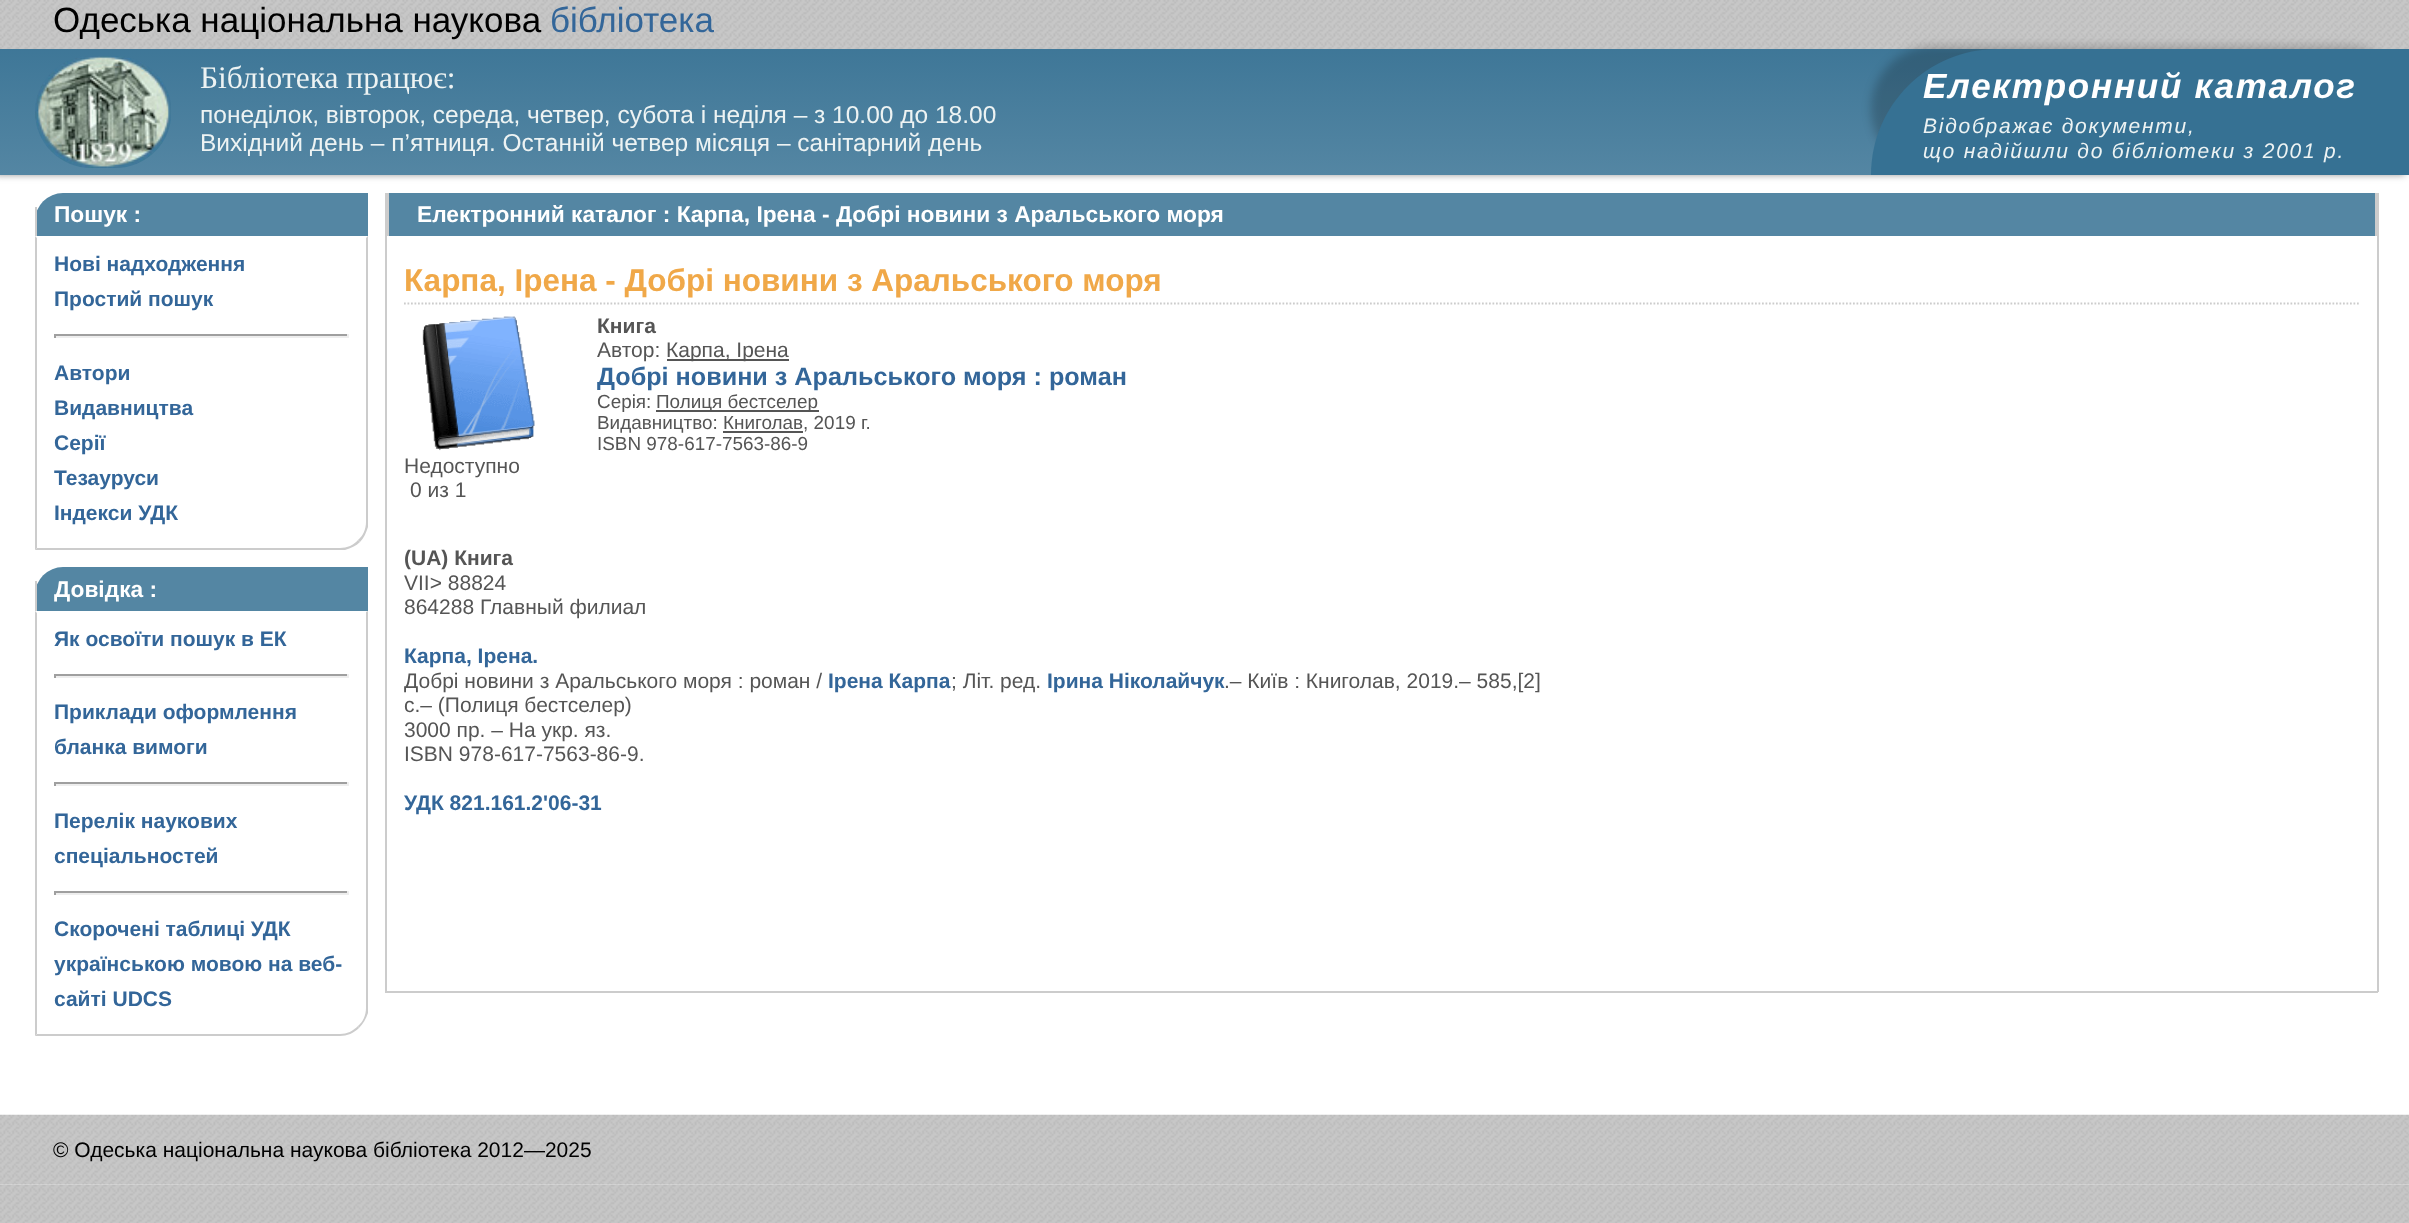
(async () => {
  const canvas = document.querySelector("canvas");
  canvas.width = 2409;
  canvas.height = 1223;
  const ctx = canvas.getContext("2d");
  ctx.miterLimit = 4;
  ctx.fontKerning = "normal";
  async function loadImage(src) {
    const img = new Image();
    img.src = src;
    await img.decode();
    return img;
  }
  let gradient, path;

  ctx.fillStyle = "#ffffff";
  ctx.fillRect(0, 0, 2409, 1223);
  ctx.drawImage(await loadImage("img/1.png"), 0, 1185, 2409, 38);
  ctx.fillStyle = "#999999";
  ctx.filter = "blur(3.5px)";
  ctx.beginPath();
  ctx.rect(-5, 0, 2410, 175);
  ctx.fill();
  ctx.filter = "none";
  gradient = ctx.createLinearGradient(1205, 0, 1205, 175);
  gradient.addColorStop(0, "#367193");
  gradient.addColorStop(1, "#5486a3");
  ctx.fillStyle = gradient;
  ctx.fillRect(0, 49, 1996, 126);
  ctx.drawImage(await loadImage("img/2.png"), 0, 0, 2409, 49);
  ctx.drawImage(await loadImage("img/3.png"), 35, 56, 136, 112);
  ctx.save();
  ctx.beginPath();
  ctx.rect(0, 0, 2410, 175);
  ctx.clip();
  ctx.fillStyle = "rgba(0, 0, 0, 0.2)";
  ctx.filter = "blur(5px)";
  ctx.beginPath();
  ctx.roundRect(1871, 46, 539, 126, 126);
  ctx.fill();
  ctx.filter = "none";
  ctx.restore();
  ctx.fillStyle = "#367193";
  path = new Path2D("M1997 49H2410V175H1871C1871 105.5 1927.5 49 1997 49Z");
  ctx.fill(path);
  ctx.fillStyle = "#5486a3";
  ctx.beginPath();
  ctx.roundRect(35, 193, 333, 43, [28, 0, 0, 0]);
  ctx.fill();
  ctx.fillStyle = "#cccccc";
  ctx.fillRect(35, 207, 2, 29);
  path = new Path2D("M368 236V527C366 533 364 538 360 542L358 540C363 536 366 529 366 522V238Z");
  ctx.fill(path);
  path = new Path2D("M345 550H35L37 548H340C347 548 354 545 358 540L360 542C356 546 351 548 345 550Z");
  ctx.fill(path);
  path = new Path2D("M35 550L37 548V238L35 236Z");
  ctx.fill(path);
  for (const [x, y, w, h, color] of [
    [54, 334, 294, 2, "#9f9f9f"],
    [347, 334, 2, 4, "#eeeeee"],
    [54, 336, 294, 2, "#eeeeee"],
    [54, 334, 2, 4, "#9f9f9f"],
  ]) {
    ctx.fillStyle = color;
    ctx.fillRect(x, y, w, h);
  }
  ctx.fillStyle = "#5486a3";
  ctx.beginPath();
  ctx.roundRect(35, 567, 333, 44, [28, 0, 0, 0]);
  ctx.fill();
  ctx.fillStyle = "#cccccc";
  ctx.fillRect(35, 581, 2, 30);
  path = new Path2D("M368 1013C366 1019 363 1024 359 1028L358 1026C363 1022 366 1015 366 1008V612L368 611Z");
  ctx.fill(path);
  path = new Path2D("M340 1036C347 1036 354 1033 359 1028L358 1026C353 1031 347 1034 340 1034H37L35 1036Z");
  ctx.fill(path);
  path = new Path2D("M35 1036L37 1034V613L35 611Z");
  ctx.fill(path);
  for (const [x, y, w, h, color] of [
    [54, 674, 294, 2, "#9f9f9f"],
    [347, 674, 2, 4, "#eeeeee"],
    [54, 676, 294, 2, "#eeeeee"],
    [54, 674, 2, 4, "#9f9f9f"],
    [54, 782, 294, 2, "#9f9f9f"],
    [347, 782, 2, 4, "#eeeeee"],
    [54, 784, 294, 2, "#eeeeee"],
    [54, 782, 2, 4, "#9f9f9f"],
    [54, 891, 294, 2, "#9f9f9f"],
    [347, 891, 2, 4, "#eeeeee"],
    [54, 893, 294, 2, "#eeeeee"],
    [54, 891, 2, 4, "#9f9f9f"],
    [2377, 193, 2, 799, "#cccccc"],
    [385, 991, 1993, 2, "#cccccc"],
    [385, 193, 2, 799, "#cccccc"],
    [389, 193, 1986, 43, "#5486a3"],
    [2375, 193, 2, 43, "#cccccc"],
    [387, 193, 2, 43, "#cccccc"],
  ]) {
    ctx.fillStyle = color;
    ctx.fillRect(x, y, w, h);
  }
  path = new Path2D("M404 303.5H2359");
  ctx.strokeStyle = "#cccccc";
  ctx.lineWidth = 1.8;
  ctx.setLineDash([1.75, 1.75]);
  ctx.stroke(path);
  for (const [x, y, w, h, color] of [
    [667, 359, 122, 2, "#555555"],
    [656, 410, 163, 2, "#555555"],
    [723, 431, 80, 2, "#555555"],
  ]) {
    ctx.fillStyle = color;
    ctx.fillRect(x, y, w, h);
  }
  ctx.drawImage(await loadImage("img/4.png"), 422, 316, 113, 135);
  ctx.drawImage(await loadImage("img/5.png"), 0, 1114, 2409, 71);
  ctx.font = "35px Liberation Sans";
  ctx.fillStyle = "#000000";
  ctx.fillText("Одеська національна наукова", 53, 32);
  ctx.fillStyle = "#336699";
  ctx.fillText("бібліотека", 550, 32);
  ctx.font = "31.5px Liberation Serif";
  ctx.fillStyle = "#edf3f3";
  ctx.fillText("Бібліотека працює:", 200, 88);
  ctx.font = "24.5px Liberation Sans";
  ctx.fillText("понеділок, вівторок, середа, четвер, субота і неділя – з 10.00 до 18.00", 200, 123);
  ctx.fillText("Вихідний день – п’ятниця. Останній четвер місяця – санітарний день", 200, 151);
  ctx.letterSpacing = "1.75px";
  ctx.font = "italic bold 35px Liberation Sans";
  ctx.fillStyle = "#ffffff";
  ctx.fillText("Електронний каталог", 1923, 98);
  ctx.font = "italic 21px Liberation Sans";
  ctx.fillStyle = "#edf3f3";
  ctx.fillText("Відображає документи,", 1923, 133);
  ctx.fillText("що надійшли до бібліотеки з 2001 р.", 1923, 158);
  ctx.letterSpacing = "0px";
  ctx.font = "bold 22.75px Liberation Sans";
  ctx.fillStyle = "#ffffff";
  ctx.fillText("Пошук :", 54, 222);
  ctx.font = "bold 21px Liberation Sans";
  ctx.fillStyle = "#336699";
  for (const [text, x, y] of [
    ["Нові надходження", 54, 271],
    ["Простий пошук", 54, 306],
    ["Автори", 54, 380],
    ["Видавництва", 54, 415],
    ["Серії", 54, 450],
    ["Тезауруси", 54, 485],
    ["Індекси УДК", 54, 520],
  ]) {
    ctx.fillText(text, x, y);
  }
  ctx.font = "bold 22.75px Liberation Sans";
  ctx.fillStyle = "#ffffff";
  ctx.fillText("Довідка :", 54, 597);
  ctx.font = "bold 21px Liberation Sans";
  ctx.fillStyle = "#336699";
  for (const [text, x, y] of [
    ["Як освоїти пошук в ЕК", 54, 646],
    ["Приклади оформлення", 54, 719],
    ["бланка вимоги", 54, 754],
    ["Перелік наукових", 54, 828],
    ["спеціальностей", 54, 863],
    ["Скорочені таблиці УДК", 54, 936],
    ["українською мовою на веб-", 54, 971],
    ["сайті UDCS", 54, 1006],
  ]) {
    ctx.fillText(text, x, y);
  }
  ctx.font = "bold 22.75px Liberation Sans";
  ctx.fillStyle = "#ffffff";
  ctx.fillText("Електронний каталог : Карпа, Ірена - Добрі новини з Аральського моря", 417, 222);
  ctx.font = "bold 31.5px Liberation Sans";
  ctx.fillStyle = "#f0a848";
  ctx.fillText("Карпа, Ірена - Добрі новини з Аральського моря", 404, 291);
  ctx.font = "bold 21px Liberation Sans";
  ctx.fillStyle = "#555555";
  ctx.fillText("Книга", 597, 333);
  ctx.font = "21px Liberation Sans";
  ctx.fillText("Автор:", 597, 357);
  ctx.fillText("Карпа, Ірена", 666, 357);
  ctx.font = "bold 25.2px Liberation Sans";
  ctx.fillStyle = "#336699";
  ctx.fillText("Добрі новини з Аральського моря : роман", 597, 385);
  ctx.font = "18.9px Liberation Sans";
  ctx.fillStyle = "#555555";
  for (const [text, x, y] of [
    ["Серія:", 597, 408],
    ["Полиця бестселер", 656, 408],
    ["Видавництво: Книголав, 2019 г.", 597, 429],
    ["ISBN 978-617-7563-86-9", 597, 450],
  ]) {
    ctx.fillText(text, x, y);
  }
  ctx.font = "21px Liberation Sans";
  ctx.fillText("Недоступно", 404, 473);
  ctx.fillText("0 из 1", 410, 497);
  ctx.font = "bold 21px Liberation Sans";
  ctx.fillText("(UA) Книга", 404, 565);
  ctx.font = "21px Liberation Sans";
  ctx.fillText("VII> 88824", 404, 590);
  ctx.fillText("864288 Главный филиал", 404, 614);
  ctx.font = "bold 21px Liberation Sans";
  ctx.fillStyle = "#336699";
  ctx.fillText("Карпа, Ірена.", 404, 663);
  ctx.font = "21px Liberation Sans";
  ctx.fillStyle = "#555555";
  ctx.fillText("Добрі новини з Аральського моря : роман /", 404, 688);
  ctx.font = "bold 21px Liberation Sans";
  ctx.fillStyle = "#336699";
  ctx.fillText("Ірена Карпа", 828, 688);
  ctx.font = "21px Liberation Sans";
  ctx.fillStyle = "#555555";
  ctx.fillText("; Літ. ред.", 951, 688);
  ctx.font = "bold 21px Liberation Sans";
  ctx.fillStyle = "#336699";
  ctx.fillText("Ірина Ніколайчук", 1047, 688);
  ctx.font = "21px Liberation Sans";
  ctx.fillStyle = "#555555";
  for (const [text, x, y] of [
    [".– Київ : Книголав, 2019.– 585,[2]", 1224, 688],
    ["с.– (Полиця бестселер)", 404, 712],
    ["3000 пр. – На укр. яз.", 404, 737],
    ["ISBN 978-617-7563-86-9.", 404, 761],
  ]) {
    ctx.fillText(text, x, y);
  }
  ctx.font = "bold 21px Liberation Sans";
  ctx.fillStyle = "#336699";
  ctx.fillText("УДК 821.161.2'06-31", 404, 810);
  ctx.font = "21px Liberation Sans";
  ctx.fillStyle = "#000000";
  ctx.fillText("© Одеська національна наукова бібліотека 2012—2025", 53, 1157);
})();
